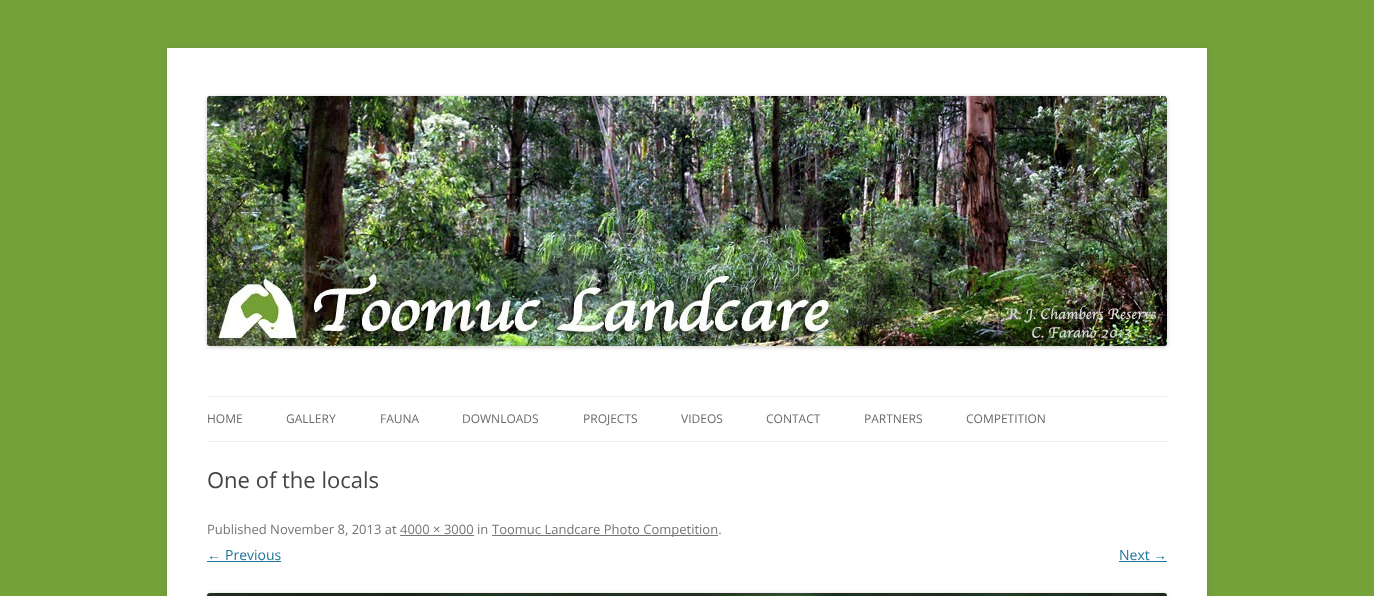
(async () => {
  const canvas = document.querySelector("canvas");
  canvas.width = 1374;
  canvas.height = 596;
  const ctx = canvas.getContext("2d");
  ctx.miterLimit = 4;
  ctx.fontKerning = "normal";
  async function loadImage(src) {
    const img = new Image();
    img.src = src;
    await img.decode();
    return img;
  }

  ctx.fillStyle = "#74a138";
  ctx.fillRect(0, 0, 1374, 596);
  ctx.fillStyle = "rgba(100, 100, 100, 0.3)";
  ctx.filter = "blur(3px)";
  ctx.beginPath();
  ctx.rect(167, 50, 1040, 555);
  ctx.fill();
  ctx.filter = "none";
  ctx.fillStyle = "#ffffff";
  ctx.fillRect(167, 48, 1040, 548);
  ctx.fillStyle = "rgba(0, 0, 0, 0.2)";
  ctx.filter = "blur(2px)";
  ctx.beginPath();
  ctx.roundRect(207, 97, 960, 250, 3);
  ctx.fill();
  ctx.filter = "none";
  ctx.drawImage(await loadImage("img/1.png"), 207, 96, 960, 250);
  for (const [x, y, w, h, color] of [
    [207, 396, 960, 1, "#ededed"],
    [207, 441, 960, 1, "#ededed"],
    [492, 535, 226, 1, "#757575"],
    [400, 535, 74, 1, "#757575"],
    [207, 561, 74, 1, "#21759b"],
    [1119, 561, 48, 1, "#21759b"],
  ]) {
    ctx.fillStyle = color;
    ctx.fillRect(x, y, w, h);
  }
  ctx.fillStyle = "rgba(0, 0, 0, 0.2)";
  ctx.filter = "blur(2px)";
  ctx.beginPath();
  ctx.roundRect(207, 594, 960, 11, 3);
  ctx.fill();
  ctx.filter = "none";
  ctx.drawImage(await loadImage("img/2.png"), 207, 593, 960, 3);
  ctx.font = "12px Open Sans";
  ctx.fillStyle = "#6a6a6a";
  for (const [text, x, y] of [
    ["HOME", 207, 423],
    ["GALLERY", 286, 423],
    ["FAUNA", 380, 423],
    ["DOWNLOADS", 462, 423],
    ["PROJECTS", 583, 423],
    ["VIDEOS", 681, 423],
    ["CONTACT", 766, 423],
    ["PARTNERS", 864, 423],
    ["COMPETITION", 966, 423],
  ]) {
    ctx.fillText(text, x, y);
  }
  ctx.font = "22px Open Sans";
  ctx.fillStyle = "#444444";
  ctx.fillText("One of the locals", 207, 488);
  ctx.font = "13px Open Sans";
  ctx.fillStyle = "#757575";
  ctx.fillText("Published November 8, 2013 at 4000 × 3000 in", 207, 534);
  ctx.fillText("Toomuc Landcare Photo Competition.", 492, 534);
  ctx.font = "14px Liberation Sans";
  ctx.fillStyle = "#21759b";
  ctx.fillText("←", 207, 560);
  ctx.font = "14px Open Sans";
  ctx.fillText("Previous", 225, 560);
  ctx.fillText("Next", 1119, 560);
  ctx.font = "14px Liberation Sans";
  ctx.fillText("→", 1153, 560);
})();
